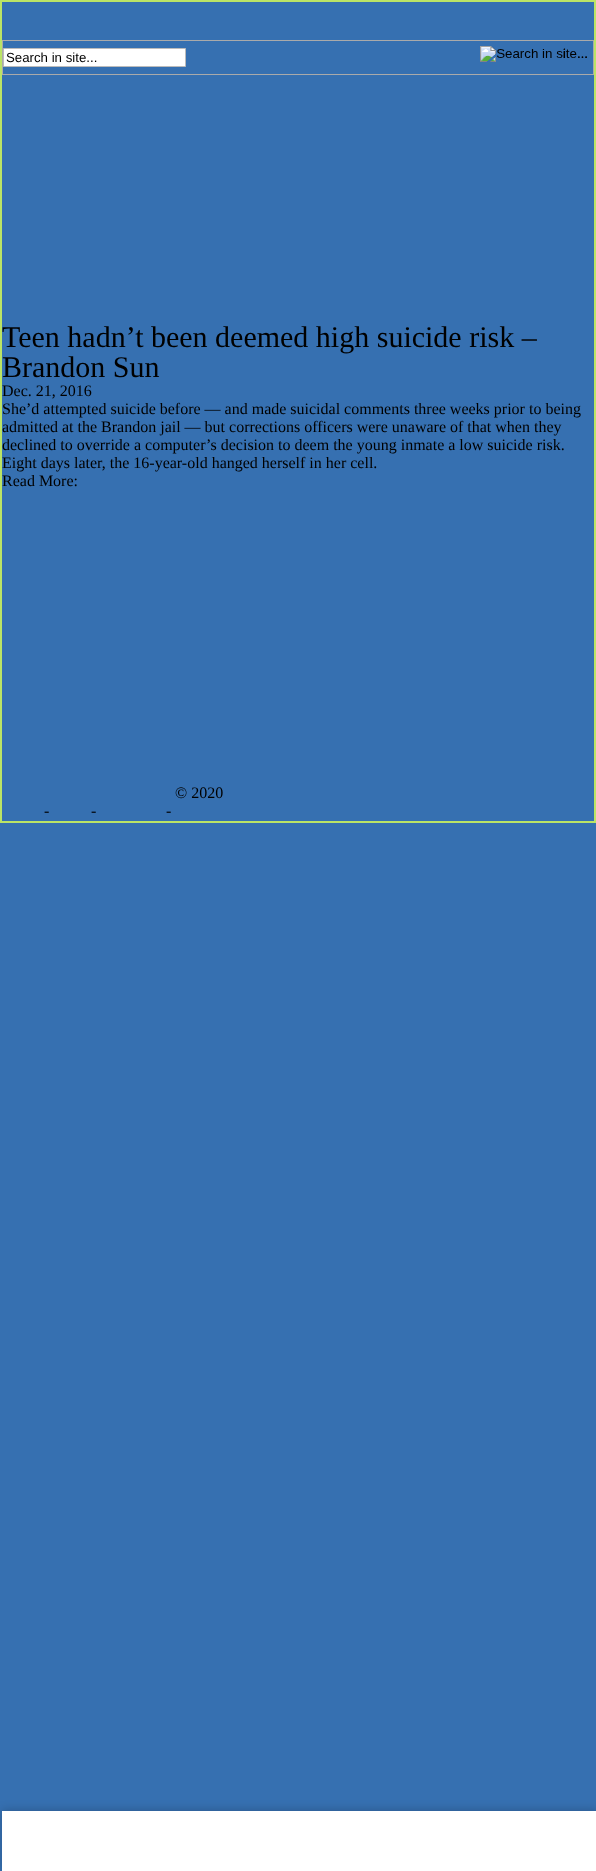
(async () => {
  const canvas = document.querySelector("canvas");
  canvas.width = 596;
  canvas.height = 1871;
  const ctx = canvas.getContext("2d");
  ctx.miterLimit = 4;
  ctx.fontKerning = "normal";
  async function loadImage(src) {
    const img = new Image();
    img.src = src;
    await img.decode();
    return img;
  }

  ctx.fillStyle = "#3670b1";
  ctx.fillRect(0, 0, 596, 1871);
  ctx.strokeStyle = "#bbe465";
  ctx.lineWidth = 2;
  ctx.strokeRect(1, 1, 594, 821);
  ctx.strokeStyle = "#aaaaaa";
  ctx.lineWidth = 1;
  ctx.strokeRect(2.5, 40.5, 591, 34);
  ctx.fillStyle = "#ffffff";
  ctx.beginPath();
  ctx.rect(3.5, 48.5, 182, 18);
  ctx.fill();
  ctx.strokeStyle = "#bbbbbb";
  ctx.stroke();
  ctx.drawImage(await loadImage("img/1.png"), 480, 46, 107, 16);
  ctx.fillStyle = "rgba(0, 0, 0, 0.2)";
  ctx.filter = "blur(5px)";
  ctx.beginPath();
  ctx.rect(2, 1810, 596, 60);
  ctx.fill();
  ctx.filter = "none";
  ctx.fillStyle = "#ffffff";
  ctx.fillRect(2, 1811, 594, 60);
  ctx.font = "13.25px Liberation Sans";
  ctx.fillStyle = "#000000";
  for (const [text, x, y] of [
    ["Search in site...", 6, 62],
    ["i", 563, 58],
    ["...", 577, 58],
  ]) {
    ctx.fillText(text, x, y);
  }
  ctx.font = "30px Liberation Serif";
  ctx.fillText("Teen hadn’t been deemed high suicide risk –", 2, 347);
  ctx.fillText("Brandon Sun", 2, 377);
  ctx.font = "16px Liberation Serif";
  for (const [text, x, y] of [
    ["Dec. 21, 2016", 2, 396],
    ["She’d attempted suicide before — and made suicidal comments three weeks prior to being", 2, 414],
    ["admitted at the Brandon jail — but corrections officers were unaware of that when they", 2, 432],
    ["declined to override a computer’s decision to deem the young inmate a low suicide risk.", 2, 450],
    ["Eight days later, the 16-year-old hanged herself in her cell.", 2, 468],
    ["Read More:", 2, 486],
    ["© 2020", 175, 798],
    ["-", 44, 816],
    ["-", 91, 816],
    ["-", 166, 816],
  ]) {
    ctx.fillText(text, x, y);
  }
})();
